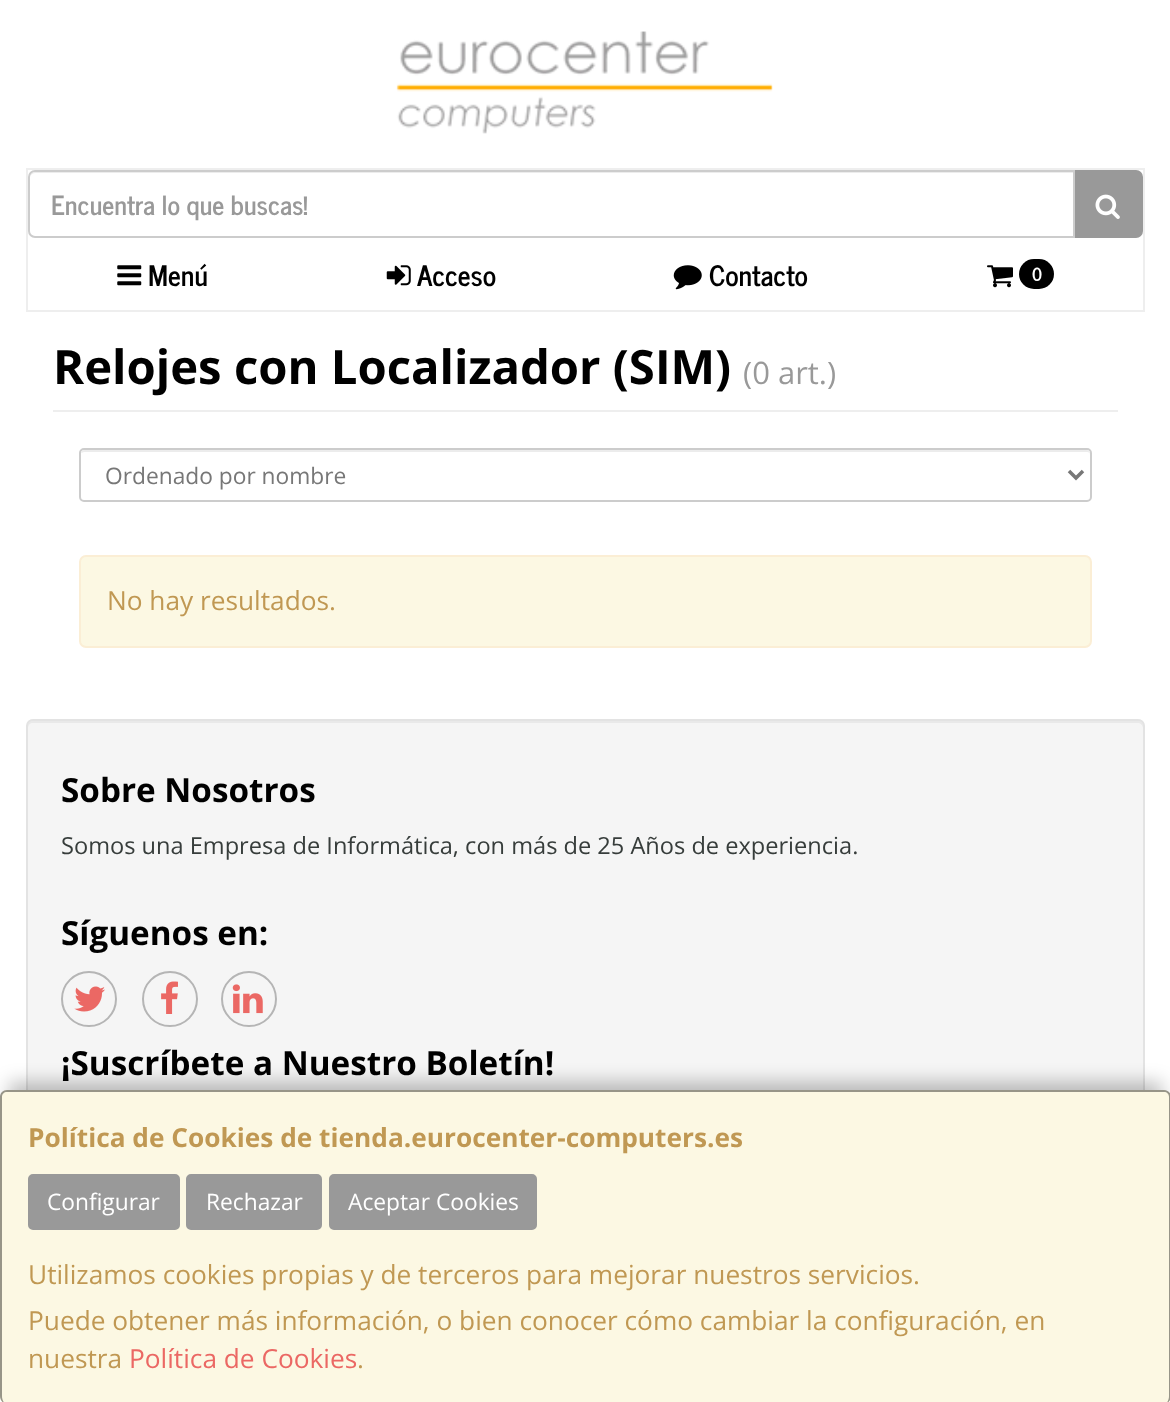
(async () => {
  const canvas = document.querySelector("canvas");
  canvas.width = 1170;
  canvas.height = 1402;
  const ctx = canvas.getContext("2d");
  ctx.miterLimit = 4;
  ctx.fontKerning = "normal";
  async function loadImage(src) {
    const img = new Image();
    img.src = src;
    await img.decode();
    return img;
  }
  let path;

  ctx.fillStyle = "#ffffff";
  ctx.fillRect(0, 0, 1170, 1402);
  ctx.drawImage(await loadImage("img/1.png"), 396, 31, 377, 103);
  ctx.strokeStyle = "#eeeeee";
  ctx.lineWidth = 2;
  ctx.strokeRect(27, 169, 1117, 142);
  ctx.fillStyle = "#999999";
  ctx.beginPath();
  ctx.roundRect(1074, 171, 68, 66, [0, 6, 6, 0]);
  ctx.fill();
  ctx.strokeStyle = "#999999";
  ctx.stroke();
  ctx.fillStyle = "#ffffff";
  ctx.beginPath();
  ctx.roundRect(28, 170, 1047, 68, [7, 0, 0, 7]);
  ctx.fill();
  ctx.fillStyle = "#ececec";
  path = new Path2D("M35 173H1073V172H35C32 172 30 175 30 178C30 176 32 173 35 173Z");
  ctx.fill(path);
  ctx.beginPath();
  ctx.roundRect(29, 171, 1045, 66, [6, 0, 0, 6]);
  ctx.strokeStyle = "#cccccc";
  ctx.stroke();
  ctx.drawImage(await loadImage("img/2.png"), 1095, 194, 25, 25);
  ctx.drawImage(await loadImage("img/3.png"), 117, 265, 25, 21);
  ctx.drawImage(await loadImage("img/4.png"), 386, 265, 25, 21);
  ctx.drawImage(await loadImage("img/5.png"), 673, 265, 29, 25);
  ctx.drawImage(await loadImage("img/6.png"), 987, 265, 26, 23);
  ctx.fillStyle = "#000000";
  ctx.beginPath();
  ctx.roundRect(1019, 259, 35, 30, 15);
  ctx.fill();
  ctx.fillStyle = "#eeeeee";
  ctx.fillRect(53, 410, 1065, 2);
  ctx.fillStyle = "#ececec";
  path = new Path2D("M84 452H1087C1089 452 1090 453 1090 455V454C1090 452 1088 450 1086 450H85C83 450 82 451 81 453Z");
  ctx.fill(path);
  ctx.beginPath();
  ctx.roundRect(80, 449, 1011, 52, 4);
  ctx.stroke();
  path = new Path2D("M1069 471L1076 478L1083 471");
  ctx.strokeStyle = "#777777";
  ctx.lineWidth = 3.5;
  ctx.stroke(path);
  ctx.fillStyle = "#fcf8e3";
  ctx.beginPath();
  ctx.roundRect(80, 556, 1011, 91, 6);
  ctx.fill();
  ctx.strokeStyle = "#fbeed5";
  ctx.lineWidth = 2;
  ctx.stroke();
  ctx.fillStyle = "#f5f5f5";
  ctx.beginPath();
  ctx.roundRect(26, 719, 1119, 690, 7);
  ctx.fill();
  ctx.fillStyle = "#e9e9e9";
  path = new Path2D("M33 723H1138C1140 723 1143 725 1143 728V726C1143 723 1141 721 1138 721H33C30 721 28 723 28 726V728C28 725 30 723 33 723Z");
  ctx.fill(path);
  ctx.beginPath();
  ctx.roundRect(27, 720, 1117, 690, 6);
  ctx.strokeStyle = "#e3e3e3";
  ctx.stroke();
  ctx.beginPath();
  ctx.arc(89, 999, 27, 0, Math.PI * 2);
  ctx.strokeStyle = "#b5b5b5";
  ctx.stroke();
  ctx.drawImage(await loadImage("img/7.png"), 74, 986, 31, 26);
  ctx.beginPath();
  ctx.arc(170, 999, 27, 0, Math.PI * 2);
  ctx.stroke();
  ctx.drawImage(await loadImage("img/8.png"), 161, 981, 17, 33);
  ctx.beginPath();
  ctx.arc(249, 999, 27, 0, Math.PI * 2);
  ctx.stroke();
  ctx.drawImage(await loadImage("img/9.png"), 232, 984, 31, 30);
  ctx.fillStyle = "rgba(0, 0, 0, 0.25)";
  ctx.filter = "blur(9px)";
  ctx.beginPath();
  ctx.rect(9, 1082, 1153, 295);
  ctx.fill();
  ctx.filter = "none";
  ctx.fillStyle = "#fcf8e3";
  ctx.beginPath();
  ctx.roundRect(0, 1090, 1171, 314, 7);
  ctx.fill();
  ctx.fillStyle = "rgba(0, 0, 0, 0.4)";
  path = new Path2D("M7 1090H1164C1168 1090 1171 1093 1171 1097V1396C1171 1400 1168 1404 1164 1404H7C3 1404 0 1400 0 1396V1097C0 1093 3 1090 7 1090ZM7 1092H1164C1167 1092 1169 1094 1169 1097V1396C1169 1400 1167 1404 1164 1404H7C4 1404 2 1400 2 1396V1097C2 1094 4 1092 7 1092Z");
  ctx.fill(path, "evenodd");
  ctx.fillStyle = "#999999";
  ctx.beginPath();
  ctx.roundRect(29, 1175, 150, 54, 4);
  ctx.fill();
  ctx.strokeStyle = "#999999";
  ctx.stroke();
  ctx.beginPath();
  ctx.roundRect(187, 1175, 134, 54, 4);
  ctx.fill();
  ctx.stroke();
  ctx.beginPath();
  ctx.roundRect(330, 1175, 206, 54, 4);
  ctx.fill();
  ctx.stroke();
  ctx.font = "bold 26.25px News Cycle";
  ctx.fillText("Encuentra lo que buscas!", 51, 215);
  ctx.font = "bold 28px News Cycle";
  ctx.fillStyle = "#000000";
  for (const [text, x, y] of [
    ["Menú", 148, 286],
    ["Acceso", 417, 286],
    ["Contacto", 709, 286],
  ]) {
    ctx.fillText(text, x, y);
  }
  ctx.font = "bold 18px News Cycle";
  ctx.fillStyle = "#ffffff";
  ctx.fillText("0", 1032, 281);
  ctx.font = "bold 47.25px Open Sans";
  ctx.fillStyle = "#000000";
  ctx.fillText("Relojes con Localizador (SIM)", 53, 384);
  ctx.font = "31px Open Sans";
  ctx.fillStyle = "#999999";
  ctx.fillText("(0 art.)", 743, 384);
  ctx.font = "22.75px Open Sans";
  ctx.fillStyle = "#777777";
  ctx.fillText("Ordenado por nombre", 105, 484);
  ctx.font = "26.25px Open Sans";
  ctx.fillStyle = "#c09853";
  ctx.fillText("No hay resultados.", 107, 610);
  ctx.font = "bold 33.25px Open Sans";
  ctx.fillStyle = "#000000";
  ctx.fillText("Sobre Nosotros", 61, 802);
  ctx.font = "23.6px Open Sans";
  ctx.fillStyle = "#373d3b";
  ctx.fillText("Somos una Empresa de Informática, con más de 25 Años de experiencia.", 61, 854);
  ctx.font = "bold 33.25px Open Sans";
  ctx.fillStyle = "#000000";
  ctx.fillText("Síguenos en:", 61, 945);
  ctx.fillText("¡Suscríbete a Nuestro Boletín!", 61, 1075);
  ctx.font = "bold 26.25px Open Sans";
  ctx.fillStyle = "#c09853";
  ctx.fillText("Política de Cookies de tienda.eurocenter-computers.es", 28, 1147);
  ctx.font = "22.75px Open Sans";
  ctx.fillStyle = "#ffffff";
  for (const [text, x, y] of [
    ["Configurar", 47, 1210],
    ["Rechazar", 206, 1210],
    ["Aceptar Cookies", 348, 1210],
  ]) {
    ctx.fillText(text, x, y);
  }
  ctx.font = "26.25px Open Sans";
  ctx.fillStyle = "#c09853";
  for (const [text, x, y] of [
    ["Utilizamos cookies propias y de terceros para mejorar nuestros servicios.", 28, 1284],
    ["Puede obtener más información, o bien conocer cómo cambiar la configuración, en", 28, 1330],
    ["nuestra", 28, 1368],
  ]) {
    ctx.fillText(text, x, y);
  }
  ctx.fillStyle = "#eb6864";
  ctx.fillText("Política de Cookies", 129, 1368);
  ctx.fillStyle = "#c09853";
  ctx.fillText(".", 357, 1368);
})();
